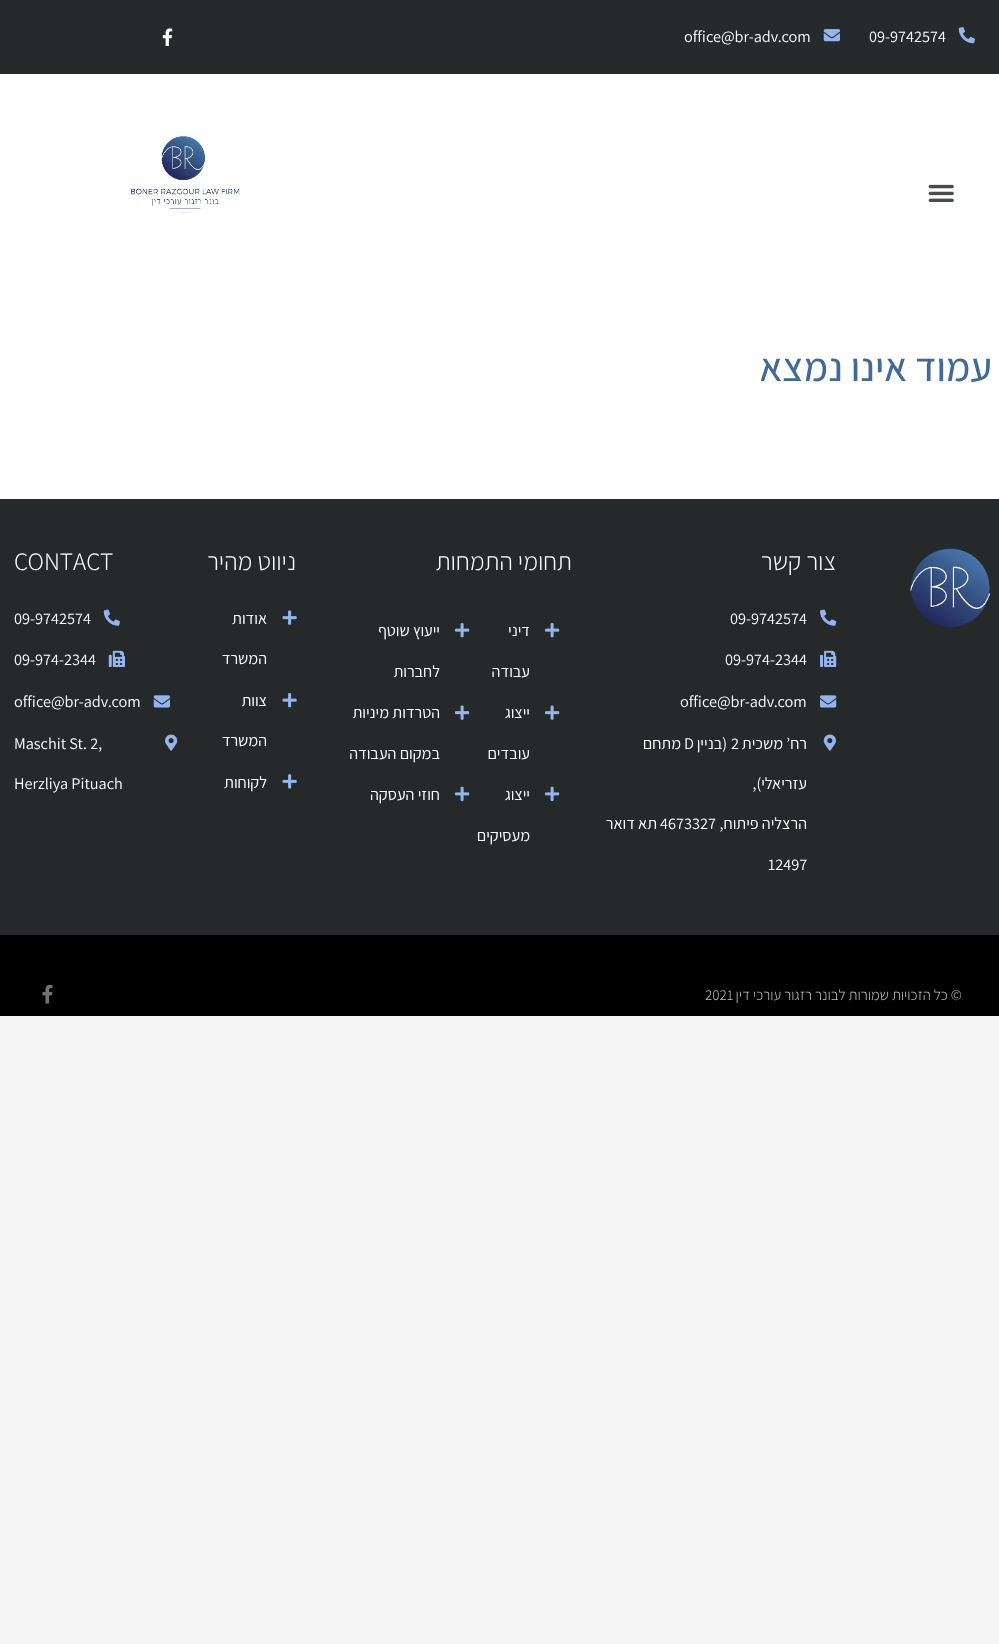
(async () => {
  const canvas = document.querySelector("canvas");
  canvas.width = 999;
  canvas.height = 1644;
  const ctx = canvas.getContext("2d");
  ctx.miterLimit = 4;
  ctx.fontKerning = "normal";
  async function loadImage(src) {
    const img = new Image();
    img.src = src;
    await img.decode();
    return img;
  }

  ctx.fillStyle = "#f5f5f5";
  ctx.fillRect(0, 0, 999, 1644);
  ctx.fillStyle = "#262a2b";
  ctx.fillRect(0, 0, 999, 74);
  ctx.drawImage(await loadImage("img/1.png"), 958, 27, 17, 17);
  ctx.drawImage(await loadImage("img/2.png"), 823, 29, 17, 13);
  ctx.drawImage(await loadImage("img/3.png"), 162, 28, 11, 18);
  ctx.fillStyle = "#ffffff";
  ctx.fillRect(0, 74, 999, 425);
  ctx.drawImage(await loadImage("img/4.png"), 928, 184, 26, 18);
  ctx.drawImage(await loadImage("img/5.png"), 130, 136, 110, 77);
  ctx.fillStyle = "#25292a";
  ctx.fillRect(0, 499, 999, 436);
  ctx.drawImage(await loadImage("img/6.png"), 910, 548, 81, 80);
  ctx.drawImage(await loadImage("img/7.png"), 820, 609, 17, 17);
  ctx.drawImage(await loadImage("img/8.png"), 820, 650, 17, 17);
  ctx.drawImage(await loadImage("img/9.png"), 820, 695, 17, 13);
  ctx.drawImage(await loadImage("img/10.png"), 823, 734, 13, 17);
  ctx.drawImage(await loadImage("img/11.png"), 545, 623, 15, 15);
  ctx.drawImage(await loadImage("img/12.png"), 545, 705, 15, 15);
  ctx.drawImage(await loadImage("img/13.png"), 545, 786, 15, 15);
  ctx.drawImage(await loadImage("img/11.png"), 455, 623, 15, 15);
  ctx.drawImage(await loadImage("img/12.png"), 455, 705, 15, 15);
  ctx.drawImage(await loadImage("img/13.png"), 455, 786, 15, 15);
  ctx.drawImage(await loadImage("img/14.png"), 282, 610, 15, 15);
  ctx.drawImage(await loadImage("img/15.png"), 282, 693, 15, 15);
  ctx.drawImage(await loadImage("img/16.png"), 282, 774, 15, 15);
  ctx.drawImage(await loadImage("img/17.png"), 103, 609, 17, 17);
  ctx.drawImage(await loadImage("img/18.png"), 108, 650, 17, 17);
  ctx.drawImage(await loadImage("img/19.png"), 153, 695, 17, 13);
  ctx.drawImage(await loadImage("img/20.png"), 165, 734, 13, 17);
  ctx.fillStyle = "#000000";
  ctx.fillRect(0, 935, 999, 81);
  ctx.drawImage(await loadImage("img/21.png"), 42, 984, 11, 20);
  ctx.font = "16.25px Assistant";
  ctx.fillStyle = "#ffffff";
  ctx.fillText("09-9742574", 869, 42);
  ctx.fillText("office@br-adv.com", 684, 42);
  ctx.direction = "rtl";
  ctx.font = "500 40px Assistant";
  ctx.fillStyle = "#40699c";
  ctx.fillText("עמוד אינו נמצא", 992, 381);
  ctx.font = "300 25px Assistant";
  ctx.fillStyle = "#ffffff";
  ctx.fillText("צור קשר", 836, 570);
  ctx.direction = "ltr";
  ctx.font = "16.25px Assistant";
  for (const [text, x, y] of [
    ["09-9742574", 730, 624],
    ["09-974-2344", 725, 665],
    ["office@br-adv.com", 680, 707],
  ]) {
    ctx.fillText(text, x, y);
  }
  ctx.direction = "rtl";
  ctx.fillText("רח’ משכית", 807, 749);
  ctx.direction = "ltr";
  ctx.fillText("2", 731, 749);
  ctx.direction = "rtl";
  ctx.fillText("(בניין", 727, 749);
  ctx.direction = "ltr";
  ctx.fillText("D", 684, 749);
  ctx.direction = "rtl";
  for (const [text, x, y] of [
    ["מתחם", 681, 749],
    ["עזריאלי),", 807, 789],
    ["הרצליה פיתוח,", 807, 829],
  ]) {
    ctx.fillText(text, x, y);
  }
  ctx.direction = "ltr";
  ctx.fillText("4673327", 660, 829);
  ctx.direction = "rtl";
  ctx.fillText("תא דואר", 657, 829);
  ctx.direction = "ltr";
  ctx.fillText("12497", 768, 870);
  ctx.direction = "rtl";
  ctx.font = "300 25px Assistant";
  ctx.fillText("תחומי התמחות", 572, 570);
  ctx.font = "16.25px Assistant";
  for (const [text, x, y] of [
    ["דיני", 530, 636],
    ["עבודה", 530, 677],
    ["ייצוג", 530, 718],
    ["עובדים", 530, 759],
    ["ייצוג", 530, 800],
    ["מעסיקים", 530, 841],
    ["ייעוץ שוטף", 440, 636],
    ["לחברות", 440, 677],
    ["הטרדות מיניות", 440, 718],
    ["במקום העבודה", 440, 759],
    ["חוזי העסקה", 440, 800],
  ]) {
    ctx.fillText(text, x, y);
  }
  ctx.font = "300 25px Assistant";
  ctx.fillText("ניווט מהיר", 296, 570);
  ctx.font = "16.25px Assistant";
  for (const [text, x, y] of [
    ["אודות", 267, 624],
    ["המשרד", 267, 664],
    ["צוות", 267, 706],
    ["המשרד", 267, 746],
    ["לקוחות", 267, 788],
  ]) {
    ctx.fillText(text, x, y);
  }
  ctx.direction = "ltr";
  ctx.font = "300 25px Assistant";
  ctx.fillText("CONTACT", 14, 570);
  ctx.font = "16.25px Assistant";
  for (const [text, x, y] of [
    ["09-9742574", 14, 624],
    ["09-974-2344", 14, 665],
    ["office@br-adv.com", 14, 707],
    ["Maschit St. 2,", 14, 749],
    ["Herzliya Pituach", 14, 789],
  ]) {
    ctx.fillText(text, x, y);
  }
  ctx.direction = "rtl";
  ctx.font = "300 15px Assistant";
  ctx.fillStyle = "#bfbfbf";
  ctx.fillText("© כל הזכויות שמורות לבונר רזגור עורכי דין", 962, 1000);
  ctx.direction = "ltr";
  ctx.fillText("2021", 705, 1000);
})();
